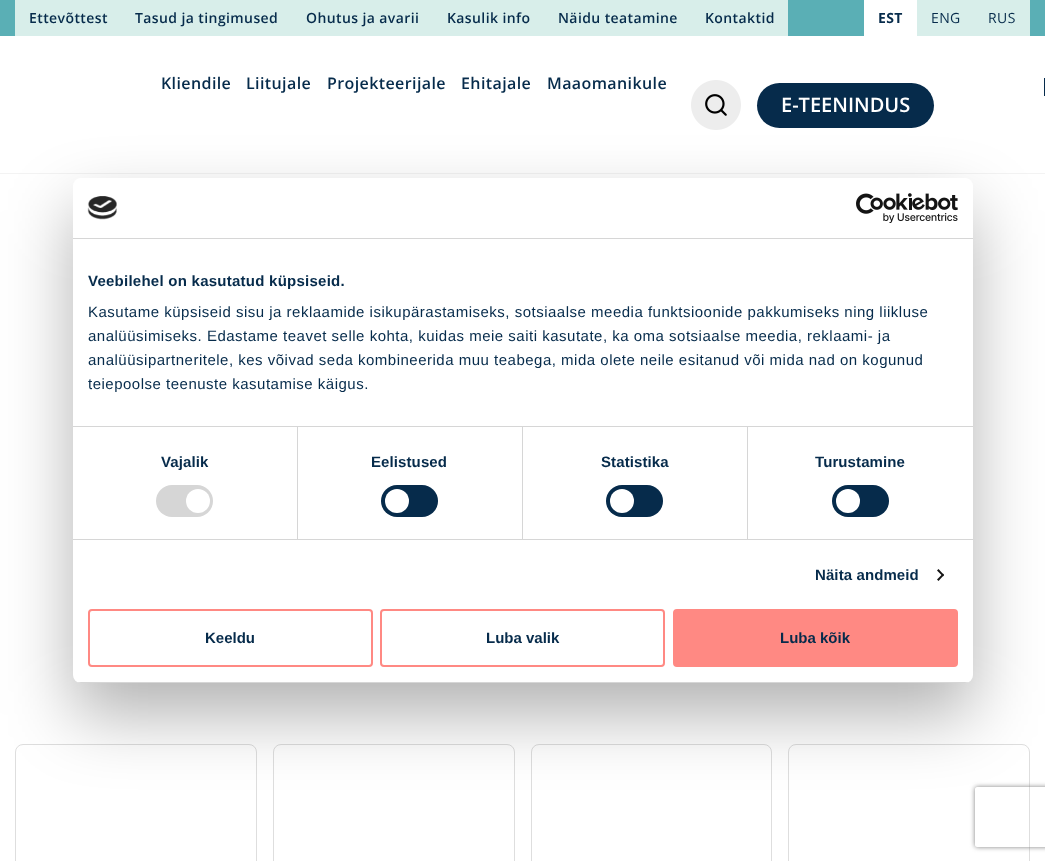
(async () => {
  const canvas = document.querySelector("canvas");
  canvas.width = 1045;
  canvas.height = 861;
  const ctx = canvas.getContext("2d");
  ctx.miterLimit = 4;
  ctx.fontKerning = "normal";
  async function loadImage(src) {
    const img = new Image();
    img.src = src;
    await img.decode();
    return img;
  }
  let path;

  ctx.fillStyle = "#ffffff";
  ctx.fillRect(0, 0, 1045, 861);
  for (const [x, y, w, h, color] of [
    [0, 0, 1045, 36, "#5aafb5"],
    [15, 0, 773, 36, "#d8eeea"],
    [864, 0, 53, 36, "#ffffff"],
    [1044, 78, 1, 18, "#062b4b"],
    [917, 0, 113, 36, "#d8eeea"],
    [0, 173, 1045, 1, "#f3f3f3"],
  ]) {
    ctx.fillStyle = color;
    ctx.fillRect(x, y, w, h);
  }
  ctx.drawImage(await loadImage("img/1.png"), 691, 80, 50, 50);
  ctx.fillStyle = "#062b4b";
  ctx.beginPath();
  ctx.roundRect(757, 83, 177, 45, 22.5);
  ctx.fill();
  ctx.beginPath();
  ctx.roundRect(15.5, 744.5, 241, 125, 7.5);
  ctx.strokeStyle = "#dedede";
  ctx.stroke();
  ctx.beginPath();
  ctx.roundRect(273.5, 744.5, 241, 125, 7.5);
  ctx.stroke();
  ctx.beginPath();
  ctx.roundRect(531.5, 744.5, 240, 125, 7.5);
  ctx.stroke();
  ctx.beginPath();
  ctx.roundRect(788.5, 744.5, 241, 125, 7.5);
  ctx.stroke();
  ctx.fillStyle = "rgba(0, 0, 0, 0.3)";
  ctx.filter = "blur(34px)";
  ctx.beginPath();
  ctx.roundRect(73, 210, 900, 505, 8);
  ctx.fill();
  ctx.filter = "none";
  ctx.fillStyle = "#ffffff";
  ctx.beginPath();
  ctx.roundRect(73, 178, 900, 505, 8);
  ctx.fill();
  ctx.fillStyle = "#d6d6d6";
  ctx.fillRect(73, 238, 900, 1);
  ctx.drawImage(await loadImage("img/2.png"), 87, 196, 30, 24);
  ctx.drawImage(await loadImage("img/3.png"), 856, 193, 102, 30);
  for (const [x, y, w, h, color] of [
    [73, 426, 900, 1, "#d6d6d6"],
    [73, 539, 900, 1, "#d6d6d6"],
    [297, 427, 1, 112, "#d6d6d6"],
  ]) {
    ctx.fillStyle = color;
    ctx.fillRect(x, y, w, h);
  }
  ctx.beginPath();
  ctx.roundRect(156, 485, 57, 32, 16);
  ctx.fill();
  ctx.fillStyle = "#ffffff";
  ctx.beginPath();
  ctx.arc(198, 501, 12, 0, Math.PI * 2);
  ctx.fill();
  ctx.fillStyle = "#d6d6d6";
  ctx.fillRect(522, 427, 1, 112);
  ctx.fillStyle = "#062b4b";
  ctx.beginPath();
  ctx.roundRect(381, 485, 57, 32, 16);
  ctx.fill();
  ctx.fillStyle = "#ffffff";
  ctx.beginPath();
  ctx.arc(397, 501, 12, 0, Math.PI * 2);
  ctx.fill();
  ctx.fillStyle = "#d6d6d6";
  ctx.fillRect(747, 427, 1, 112);
  ctx.fillStyle = "#062b4b";
  ctx.beginPath();
  ctx.roundRect(606, 485, 57, 32, 16);
  ctx.fill();
  ctx.fillStyle = "#ffffff";
  ctx.beginPath();
  ctx.arc(622, 501, 12, 0, Math.PI * 2);
  ctx.fill();
  ctx.fillStyle = "#062b4b";
  ctx.beginPath();
  ctx.roundRect(832, 485, 57, 32, 16);
  ctx.fill();
  ctx.fillStyle = "#ffffff";
  ctx.beginPath();
  ctx.arc(848, 501, 12, 0, Math.PI * 2);
  ctx.fill();
  ctx.fillStyle = "#141414";
  path = new Path2D("M938.5 569L944 575L943 576.5L937 570.5Z");
  ctx.fill(path);
  path = new Path2D("M943 573.5L944 575L938.5 581L937 579.5Z");
  ctx.fill(path);
  ctx.save();
  ctx.beginPath();
  ctx.roundRect(73, 178, 900, 505, 8);
  ctx.clip();
  ctx.fillStyle = "#d6d6d6";
  ctx.fillRect(73, 682, 900, 1);
  ctx.restore();
  ctx.beginPath();
  ctx.roundRect(89, 610, 283, 56, 3);
  ctx.strokeStyle = "#ff8983";
  ctx.lineWidth = 2;
  ctx.stroke();
  ctx.beginPath();
  ctx.roundRect(381, 610, 283, 56, 3);
  ctx.stroke();
  ctx.fillStyle = "#ff8983";
  ctx.beginPath();
  ctx.roundRect(674, 610, 283, 56, 3);
  ctx.fill();
  ctx.stroke();
  ctx.save();
  path = new Path2D("M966 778H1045V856H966ZM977 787H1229C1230 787 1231 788 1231 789V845C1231 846 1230 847 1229 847H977C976 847 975 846 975 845V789C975 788 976 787 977 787Z");
  ctx.clip(path, "evenodd");
  ctx.fillStyle = "#808080";
  ctx.filter = "blur(2.5px)";
  ctx.beginPath();
  ctx.roundRect(975, 787, 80, 60, 2);
  ctx.fill();
  ctx.filter = "none";
  ctx.restore();
  ctx.letterSpacing = "0.4px";
  ctx.font = "600 14px Open Sans";
  ctx.fillStyle = "#062b4b";
  for (const [text, x, y] of [
    ["Ettevõttest", 29, 23],
    ["Tasud ja tingimused", 135, 23],
    ["Ohutus ja avarii", 306, 23],
    ["Kasulik info", 447, 23],
    ["Näidu teatamine", 558, 23],
    ["Kontaktid", 705, 23],
  ]) {
    ctx.fillText(text, x, y);
  }
  ctx.font = "bold 14px Open Sans";
  ctx.fillText("EST", 878, 23);
  ctx.font = "14px Open Sans";
  ctx.fillText("ENG", 931, 23);
  ctx.fillText("RUS", 988, 23);
  ctx.font = "600 16px Open Sans";
  for (const [text, x, y] of [
    ["Kliendile", 161, 89],
    ["Liitujale", 246, 89],
    ["Projekteerijale", 327, 89],
    ["Ehitajale", 461, 89],
    ["Maaomanikule", 547, 89],
  ]) {
    ctx.fillText(text, x, y);
  }
  ctx.letterSpacing = "0px";
  ctx.font = "600 20px Open Sans";
  ctx.fillStyle = "#ffffff";
  ctx.fillText("E-TEENINDUS", 781, 112);
  ctx.letterSpacing = "0.25px";
  ctx.font = "bold 15px Liberation Sans";
  ctx.fillStyle = "#062b4b";
  ctx.fillText("Veebilehel on kasutatud küpsiseid.", 88, 286);
  ctx.letterSpacing = "0.5px";
  ctx.font = "15px Liberation Sans";
  for (const [text, x, y] of [
    ["Kasutame küpsiseid sisu ja reklaamide isikupärastamiseks, sotsiaalse meedia funktsioonide pakkumiseks ning liikluse", 88, 317],
    ["analüüsimiseks. Edastame teavet selle kohta, kuidas meie saiti kasutate, ka oma sotsiaalse meedia, reklaami- ja", 88, 341],
    ["analüüsipartneritele, kes võivad seda kombineerida muu teabega, mida olete neile esitanud või mida nad on kogunud", 88, 365],
    ["teiepoolse teenuste kasutamise käigus.", 88, 389],
  ]) {
    ctx.fillText(text, x, y);
  }
  ctx.letterSpacing = "0.1px";
  ctx.font = "bold 15px Liberation Sans";
  for (const [text, x, y] of [
    ["Vajalik", 161, 467],
    ["Eelistused", 371, 467],
    ["Statistika", 601, 467],
    ["Turustamine", 815, 467],
    ["Näita andmeid", 815, 580],
  ]) {
    ctx.fillText(text, x, y);
  }
  ctx.letterSpacing = "0px";
  for (const [text, x, y] of [
    ["Keeldu", 205, 643],
    ["Luba valik", 486, 643],
    ["Luba kõik", 780, 643],
  ]) {
    ctx.fillText(text, x, y);
  }
})();
